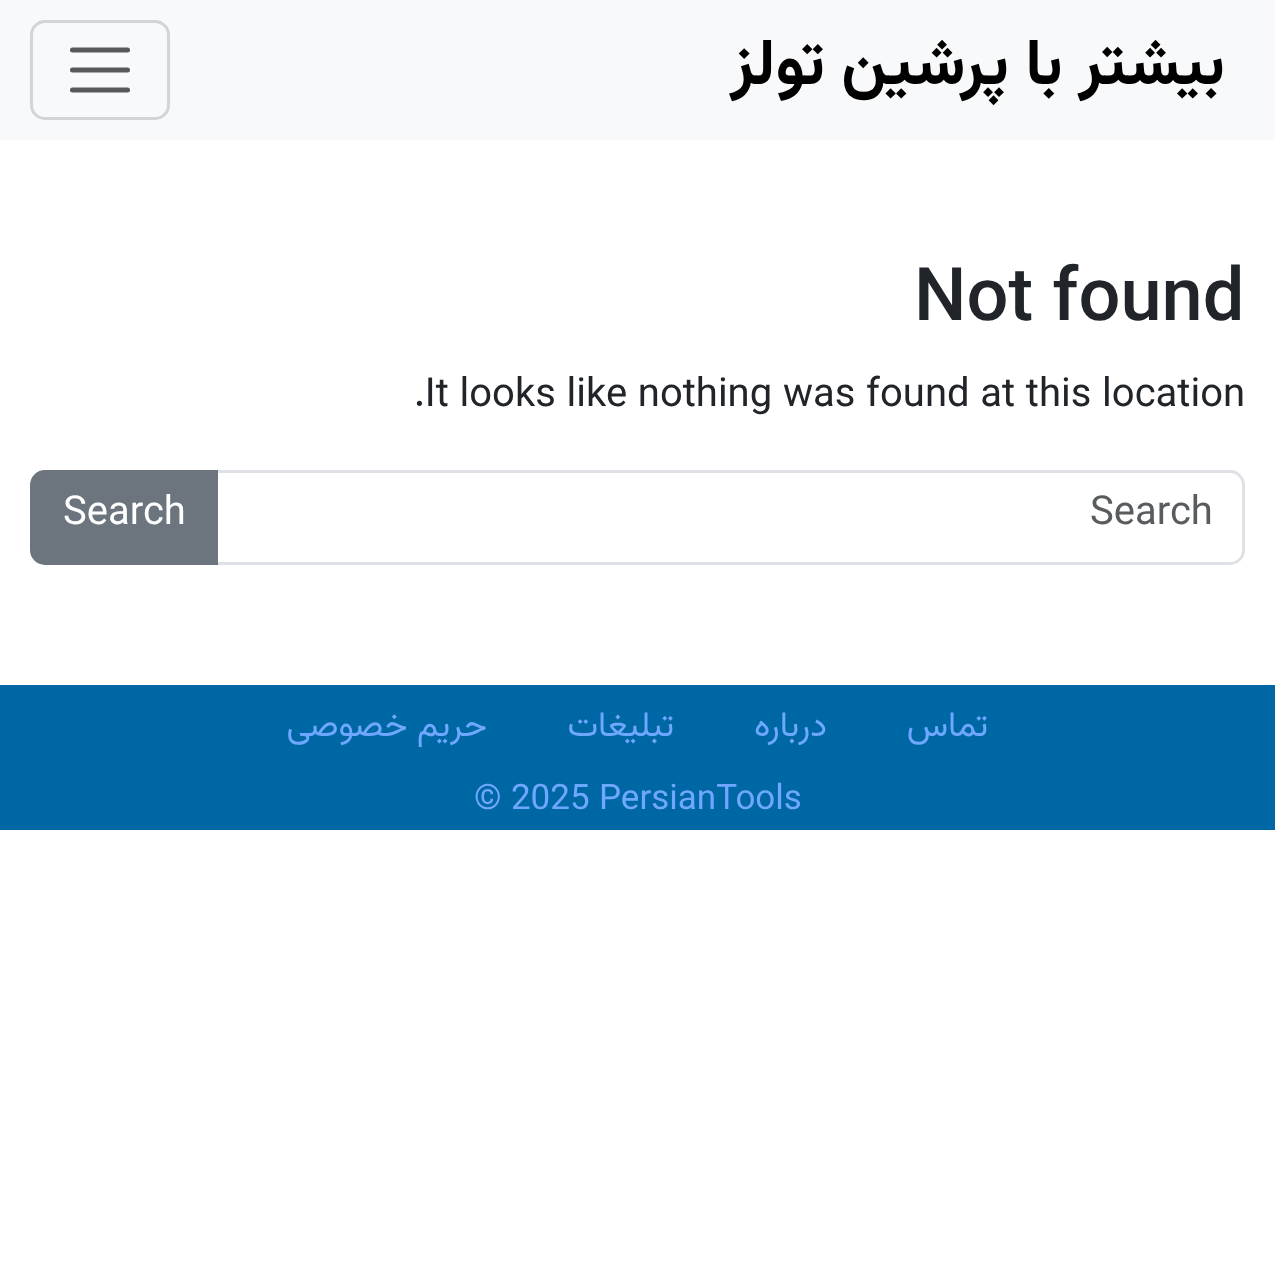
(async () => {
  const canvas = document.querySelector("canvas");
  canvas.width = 1275;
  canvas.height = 1282;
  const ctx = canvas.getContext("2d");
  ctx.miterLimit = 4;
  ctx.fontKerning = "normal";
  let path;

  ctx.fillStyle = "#ffffff";
  ctx.fillRect(0, 0, 1275, 1282);
  ctx.fillStyle = "#f8f9fa";
  ctx.fillRect(0, 0, 1275, 140);
  ctx.beginPath();
  ctx.roundRect(31.5, 21.5, 137, 97, 13.5);
  ctx.strokeStyle = "#d3d4d5";
  ctx.lineWidth = 3;
  ctx.stroke();
  path = new Path2D("M72.5 50H127.5M72.5 70H127.5M72.5 90H127.5");
  ctx.strokeStyle = "#575a5d";
  ctx.lineWidth = 5;
  ctx.lineCap = "round";
  ctx.stroke(path);
  ctx.beginPath();
  ctx.roundRect(216.5, 471.5, 1027, 92, [0, 13.5, 13.5, 0]);
  ctx.strokeStyle = "#dee2e6";
  ctx.lineWidth = 3;
  ctx.stroke();
  ctx.fillStyle = "#6c757d";
  ctx.beginPath();
  ctx.roundRect(31.5, 471.5, 185, 92, [13.5, 0, 0, 13.5]);
  ctx.fill();
  ctx.strokeStyle = "#6c757d";
  ctx.stroke();
  ctx.fillStyle = "#0067a5";
  ctx.fillRect(0, 685, 1275, 145);
  ctx.direction = "rtl";
  ctx.font = "bold 64.5px Vazirmatn";
  ctx.fillStyle = "#000000";
  ctx.fillText("بیشتر با پرشین تولز", 1225, 84);
  ctx.direction = "ltr";
  ctx.font = "500 74px Vazirmatn";
  ctx.fillStyle = "#212529";
  ctx.fillText("Not found", 914, 320);
  ctx.font = "40px Vazirmatn";
  ctx.fillText(".It looks like nothing was found at this location", 414, 406);
  ctx.fillStyle = "#ffffff";
  ctx.fillText("Search", 63, 524);
  ctx.fillStyle = "#595c5f";
  ctx.fillText("Search", 1090, 524);
  ctx.direction = "rtl";
  ctx.font = "35px Vazirmatn";
  ctx.fillStyle = "#6ea8fe";
  for (const [text, x, y] of [
    ["حریم خصوصی", 487, 736],
    ["تبلیغات", 674, 736],
    ["درباره", 827, 736],
    ["تماس", 988, 736],
  ]) {
    ctx.fillText(text, x, y);
  }
  ctx.direction = "ltr";
  ctx.fillText("© 2025 PersianTools", 474, 809);
})();
